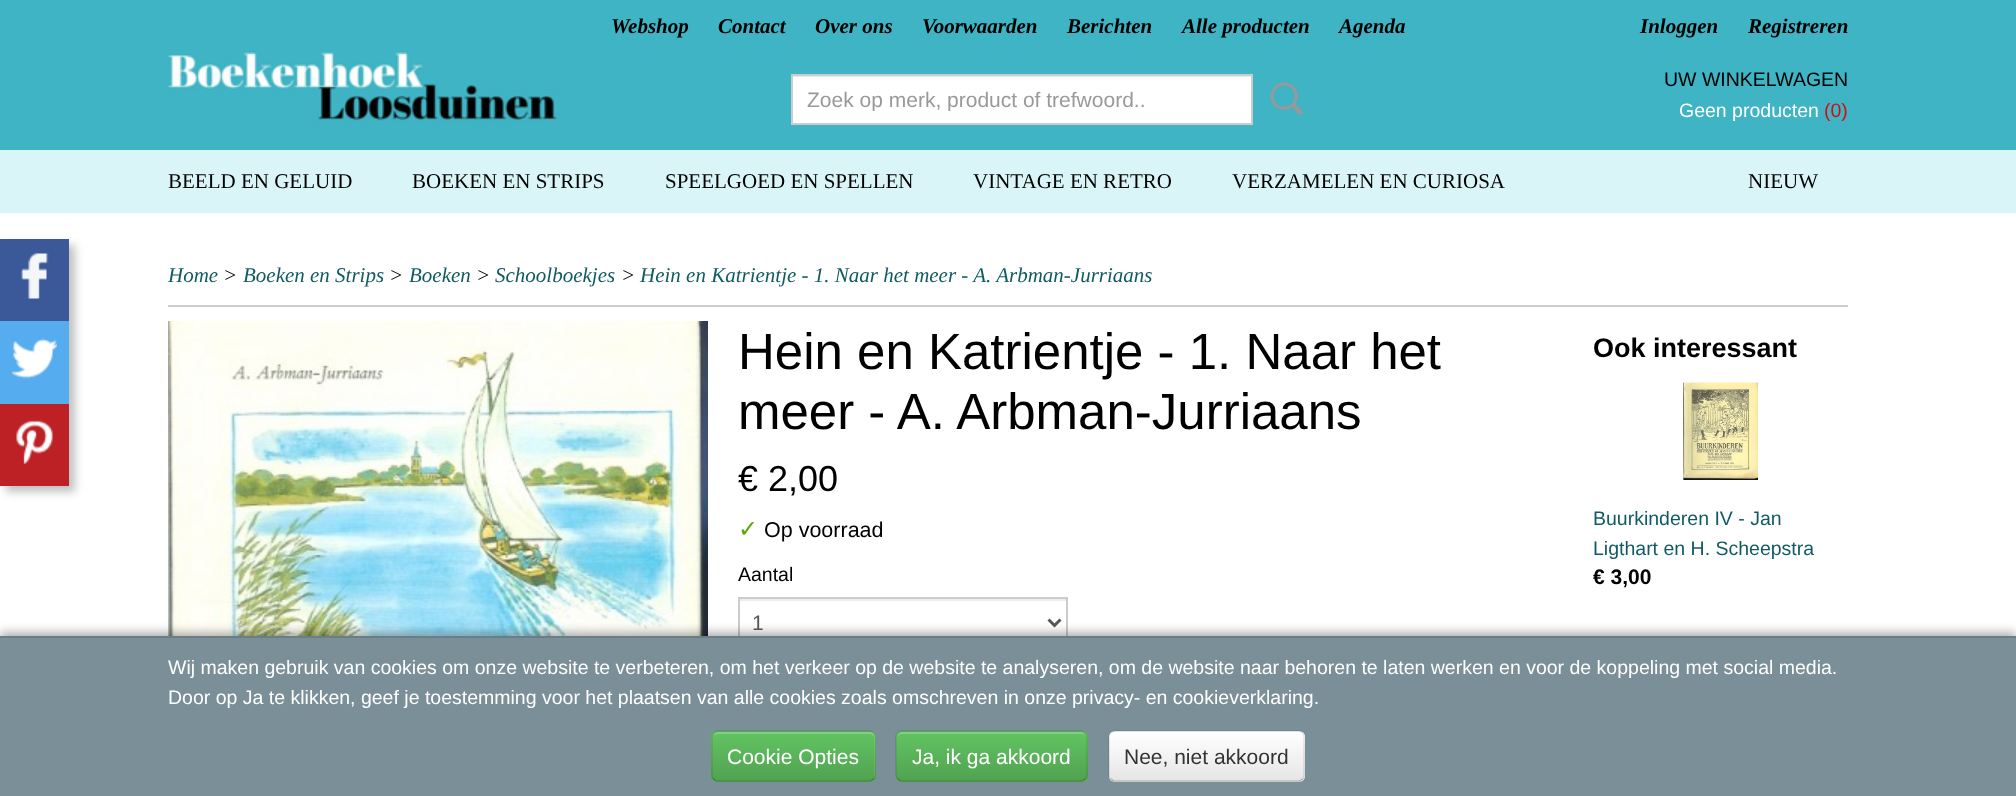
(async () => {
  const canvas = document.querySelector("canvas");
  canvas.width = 2016;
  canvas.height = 796;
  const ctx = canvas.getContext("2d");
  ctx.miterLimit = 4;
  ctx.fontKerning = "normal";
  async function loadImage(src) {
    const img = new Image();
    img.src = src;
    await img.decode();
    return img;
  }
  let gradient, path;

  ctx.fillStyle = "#ffffff";
  ctx.fillRect(0, 0, 2016, 796);
  ctx.fillStyle = "#3eb4c4";
  ctx.fillRect(0, 0, 2016, 150);
  ctx.drawImage(await loadImage("img/1.png"), 168, 51, 390, 73);
  ctx.fillStyle = "#ffffff";
  ctx.fillRect(793, 77, 458, 46);
  ctx.fillStyle = "#ececec";
  ctx.fillRect(792, 76, 459, 1);
  ctx.strokeStyle = "#cccccc";
  ctx.lineWidth = 2;
  ctx.strokeRect(792, 75, 460, 49);
  ctx.drawImage(await loadImage("img/2.png"), 1270, 82, 34, 34);
  ctx.fillStyle = "#daf5f7";
  ctx.fillRect(0, 150, 2016, 63);
  ctx.fillStyle = "rgba(50, 50, 50, 0.3)";
  ctx.filter = "blur(4px)";
  ctx.beginPath();
  ctx.rect(6, 245, 69, 247);
  ctx.fill();
  ctx.filter = "none";
  ctx.fillStyle = "#3b5998";
  ctx.fillRect(0, 239, 69, 82);
  ctx.drawImage(await loadImage("img/3.png"), 20, 253, 29, 46);
  ctx.fillStyle = "#55acee";
  ctx.fillRect(0, 321, 69, 83);
  ctx.drawImage(await loadImage("img/4.png"), 12, 338, 45, 41);
  ctx.fillStyle = "#bd2126";
  ctx.fillRect(0, 404, 69, 82);
  ctx.drawImage(await loadImage("img/5.png"), 16, 420, 37, 44);
  ctx.fillStyle = "#cccccc";
  ctx.fillRect(168, 305, 1680, 2);
  ctx.drawImage(await loadImage("img/6.png"), 168, 321, 540, 315);
  ctx.fillStyle = "#ececec";
  ctx.fillRect(740, 599, 327, 2);
  ctx.strokeRect(739, 598, 328, 49);
  path = new Path2D("M1048.5 619.5L1054.5 625.5L1060.5 619.5");
  ctx.strokeStyle = "#555555";
  ctx.lineWidth = 3;
  ctx.stroke(path);
  ctx.drawImage(await loadImage("img/7.png"), 1683, 382, 75, 98);
  ctx.fillStyle = "rgba(0, 0, 0, 0.3)";
  ctx.filter = "blur(5px)";
  ctx.beginPath();
  ctx.rect(0, 632, 2016, 160);
  ctx.fill();
  ctx.filter = "none";
  ctx.fillStyle = "#7a8f98";
  ctx.fillRect(0, 638, 2016, 158);
  ctx.fillStyle = "#697e87";
  ctx.fillRect(0, 636, 2016, 2);
  ctx.fillStyle = "#5bb75b";
  ctx.beginPath();
  ctx.roundRect(711, 731, 165, 51, 6);
  ctx.fill();
  ctx.save();
  ctx.beginPath();
  ctx.roundRect(711, 731, 165, 51, 6);
  ctx.clip();
  gradient = ctx.createLinearGradient(794, 732, 794, 780);
  gradient.addColorStop(0, "#62c462");
  gradient.addColorStop(1, "#51a351");
  ctx.fillStyle = gradient;
  ctx.fillRect(711, 732, 165, 48);
  ctx.restore();
  ctx.fillStyle = "rgba(255, 255, 255, 0.2)";
  path = new Path2D("M717 734H870C872 734 874 736 874 738V778C875 777 875 776 875 775V737C875 734 873 732 870 732H718C716 732 714 734 713 736C714 735 716 734 717 734Z");
  ctx.fill(path);
  path = new Path2D("M873.5 779C872.5 780 871.5 781 870 781H717C715.5 781 714.5 780 713.5 779");
  ctx.strokeStyle = "rgba(0, 0, 0, 0.25)";
  ctx.lineWidth = 1.5;
  ctx.stroke(path);
  path = new Path2D("M713.5 779C712.5 778 712 777 712 775.5V736.5C712 735 712.5 734 713.5 733C714.5 732 715.5 731 717 731H870C871.5 731 872.5 732 873.5 733C874.5 734 875 735 875 736.5V775.5C875 777 874.5 778 873.5 779");
  ctx.strokeStyle = "rgba(0, 0, 0, 0.1)";
  ctx.stroke(path);
  ctx.fillStyle = "#5bb75b";
  ctx.beginPath();
  ctx.roundRect(896, 731, 192, 51, 6);
  ctx.fill();
  ctx.save();
  ctx.beginPath();
  ctx.roundRect(896, 731, 192, 51, 6);
  ctx.clip();
  gradient = ctx.createLinearGradient(992, 732, 992, 780);
  gradient.addColorStop(0, "#62c462");
  gradient.addColorStop(1, "#51a351");
  ctx.fillStyle = gradient;
  ctx.fillRect(896, 732, 192, 48);
  ctx.restore();
  ctx.fillStyle = "#81cf81";
  path = new Path2D("M902 734H1082C1084 734 1086 736 1086 738C1086 735 1085 733 1082 732H901C898 733 897 735 897 738C897 736 899 734 902 734Z");
  ctx.fill(path);
  path = new Path2D("M1085 779C1084 780 1083 781 1081.5 781H901.5C900 781 899 780 898 779");
  ctx.strokeStyle = "rgba(0, 0, 0, 0.25)";
  ctx.stroke(path);
  path = new Path2D("M898 779C897 778 896 777 896 775.5V736.5C896 735 897 734 898 733C899 732 900 731 901.5 731H1081.5C1083 731 1084 732 1085 733C1086 734 1087 735 1087 736.5V775.5C1087 777 1086 778 1085 779");
  ctx.strokeStyle = "rgba(0, 0, 0, 0.1)";
  ctx.stroke(path);
  ctx.fillStyle = "#f5f5f5";
  ctx.beginPath();
  ctx.roundRect(1109, 731, 196, 51, 6);
  ctx.fill();
  ctx.save();
  ctx.beginPath();
  ctx.roundRect(1109, 731, 196, 51, 6);
  ctx.clip();
  gradient = ctx.createLinearGradient(1207, 732, 1207, 780);
  gradient.addColorStop(0, "#ffffff");
  gradient.addColorStop(1, "#e6e6e6");
  ctx.fillStyle = gradient;
  ctx.fillRect(1109, 732, 196, 48);
  ctx.restore();
  path = new Path2D("M1302.5 779C1301.5 780 1300.5 781 1299 781H1114.5C1113 781 1112 780 1111 779");
  ctx.strokeStyle = "rgba(0, 0, 0, 0.25)";
  ctx.stroke(path);
  path = new Path2D("M1111 779C1110 778 1109 777 1109 775.5V736.5C1109 735 1110 734 1111 733C1112 732 1113 731 1114.5 731H1299C1300.5 731 1301.5 732 1302.5 733C1303.5 734 1304 735 1304 736.5V775.5C1304 777 1303.5 778 1302.5 779");
  ctx.strokeStyle = "rgba(0, 0, 0, 0.1)";
  ctx.stroke(path);
  ctx.font = "italic bold 21px Liberation Serif";
  ctx.fillStyle = "#000000";
  for (const [text, x, y] of [
    ["Webshop", 611, 33],
    ["Contact", 718, 33],
    ["Over ons", 815, 33],
    ["Voorwaarden", 922, 33],
    ["Berichten", 1067, 33],
    ["Alle producten", 1182, 33],
    ["Agenda", 1339, 33],
    ["Inloggen", 1640, 33],
    ["Registreren", 1748, 33],
  ]) {
    ctx.fillText(text, x, y);
  }
  ctx.font = "19.5px Liberation Sans";
  ctx.fillText("UW WINKELWAGEN", 1664, 86);
  ctx.fillStyle = "#ffffff";
  ctx.fillText("Geen producten", 1679, 117);
  ctx.fillStyle = "#d40d13";
  ctx.fillText("(0)", 1824, 117);
  ctx.save();
  ctx.beginPath();
  ctx.rect(807, 87, 429, 24);
  ctx.clip();
  ctx.font = "21px Liberation Sans";
  ctx.fillStyle = "#999999";
  ctx.fillText("Zoek op merk, product of trefwoord..", 807, 107);
  ctx.restore();
  ctx.font = "21px Liberation Serif";
  ctx.fillStyle = "#000000";
  for (const [text, x, y] of [
    ["BEELD EN GELUID", 168, 188],
    ["BOEKEN EN STRIPS", 412, 188],
    ["SPEELGOED EN SPELLEN", 665, 188],
    ["VINTAGE EN RETRO", 973, 188],
    ["VERZAMELEN EN CURIOSA", 1232, 188],
    ["NIEUW", 1748, 188],
  ]) {
    ctx.fillText(text, x, y);
  }
  ctx.font = "italic 21px Liberation Serif";
  ctx.fillStyle = "#105b63";
  ctx.fillText("Home", 168, 282);
  ctx.fillStyle = "#000000";
  ctx.fillText(">", 223, 282);
  ctx.fillStyle = "#105b63";
  ctx.fillText("Boeken en Strips", 243, 282);
  ctx.fillStyle = "#000000";
  ctx.fillText(">", 389, 282);
  ctx.fillStyle = "#105b63";
  ctx.fillText("Boeken", 409, 282);
  ctx.fillStyle = "#000000";
  ctx.fillText(">", 476, 282);
  ctx.fillStyle = "#105b63";
  ctx.fillText("Schoolboekjes", 495, 282);
  ctx.fillStyle = "#000000";
  ctx.fillText(">", 621, 282);
  ctx.fillStyle = "#105b63";
  ctx.fillText("Hein en Katrientje - 1. Naar het meer - A. Arbman-Jurriaans", 640, 282);
  ctx.font = "51px Liberation Sans";
  ctx.fillStyle = "#000000";
  ctx.fillText("Hein en Katrientje - 1. Naar het", 738, 369);
  ctx.fillText("meer - A. Arbman-Jurriaans", 738, 429);
  ctx.font = "36px Liberation Sans";
  ctx.fillText("€ 2,00", 738, 491);
  ctx.font = "24px DejaVu Sans";
  ctx.fillStyle = "#5ea600";
  ctx.fillText("✓", 738, 537);
  ctx.font = "21.5px Liberation Sans";
  ctx.fillStyle = "#000000";
  ctx.fillText("Op voorraad", 764, 537);
  ctx.font = "19.5px Liberation Sans";
  ctx.fillText("Aantal", 738, 581);
  ctx.font = "21px Liberation Sans";
  ctx.fillStyle = "#555555";
  ctx.fillText("1", 752, 630);
  ctx.font = "bold 27px Liberation Sans";
  ctx.fillStyle = "#000000";
  ctx.fillText("Ook interessant", 1593, 357);
  ctx.font = "19.5px Liberation Sans";
  ctx.fillStyle = "#105b63";
  ctx.fillText("Buurkinderen IV - Jan", 1593, 525);
  ctx.fillText("Ligthart en H. Scheepstra", 1593, 555);
  ctx.font = "bold 21px Liberation Sans";
  ctx.fillStyle = "#000000";
  ctx.fillText("€ 3,00", 1593, 584);
  ctx.font = "19.5px Liberation Sans";
  ctx.fillStyle = "#ffffff";
  ctx.fillText("Wij maken gebruik van cookies om onze website te verbeteren, om het verkeer op de website te analyseren, om de website naar behoren te laten werken en voor de koppeling met social media.", 168, 674);
  ctx.fillText("Door op Ja te klikken, geef je toestemming voor het plaatsen van alle cookies zoals omschreven in onze privacy- en cookieverklaring.", 168, 704);
  ctx.font = "21px Liberation Sans";
  ctx.fillText("Cookie Opties", 727, 764);
  ctx.fillText("Ja, ik ga akkoord", 912, 764);
  ctx.fillStyle = "#333333";
  ctx.fillText("Nee, niet akkoord", 1124, 764);
})();
